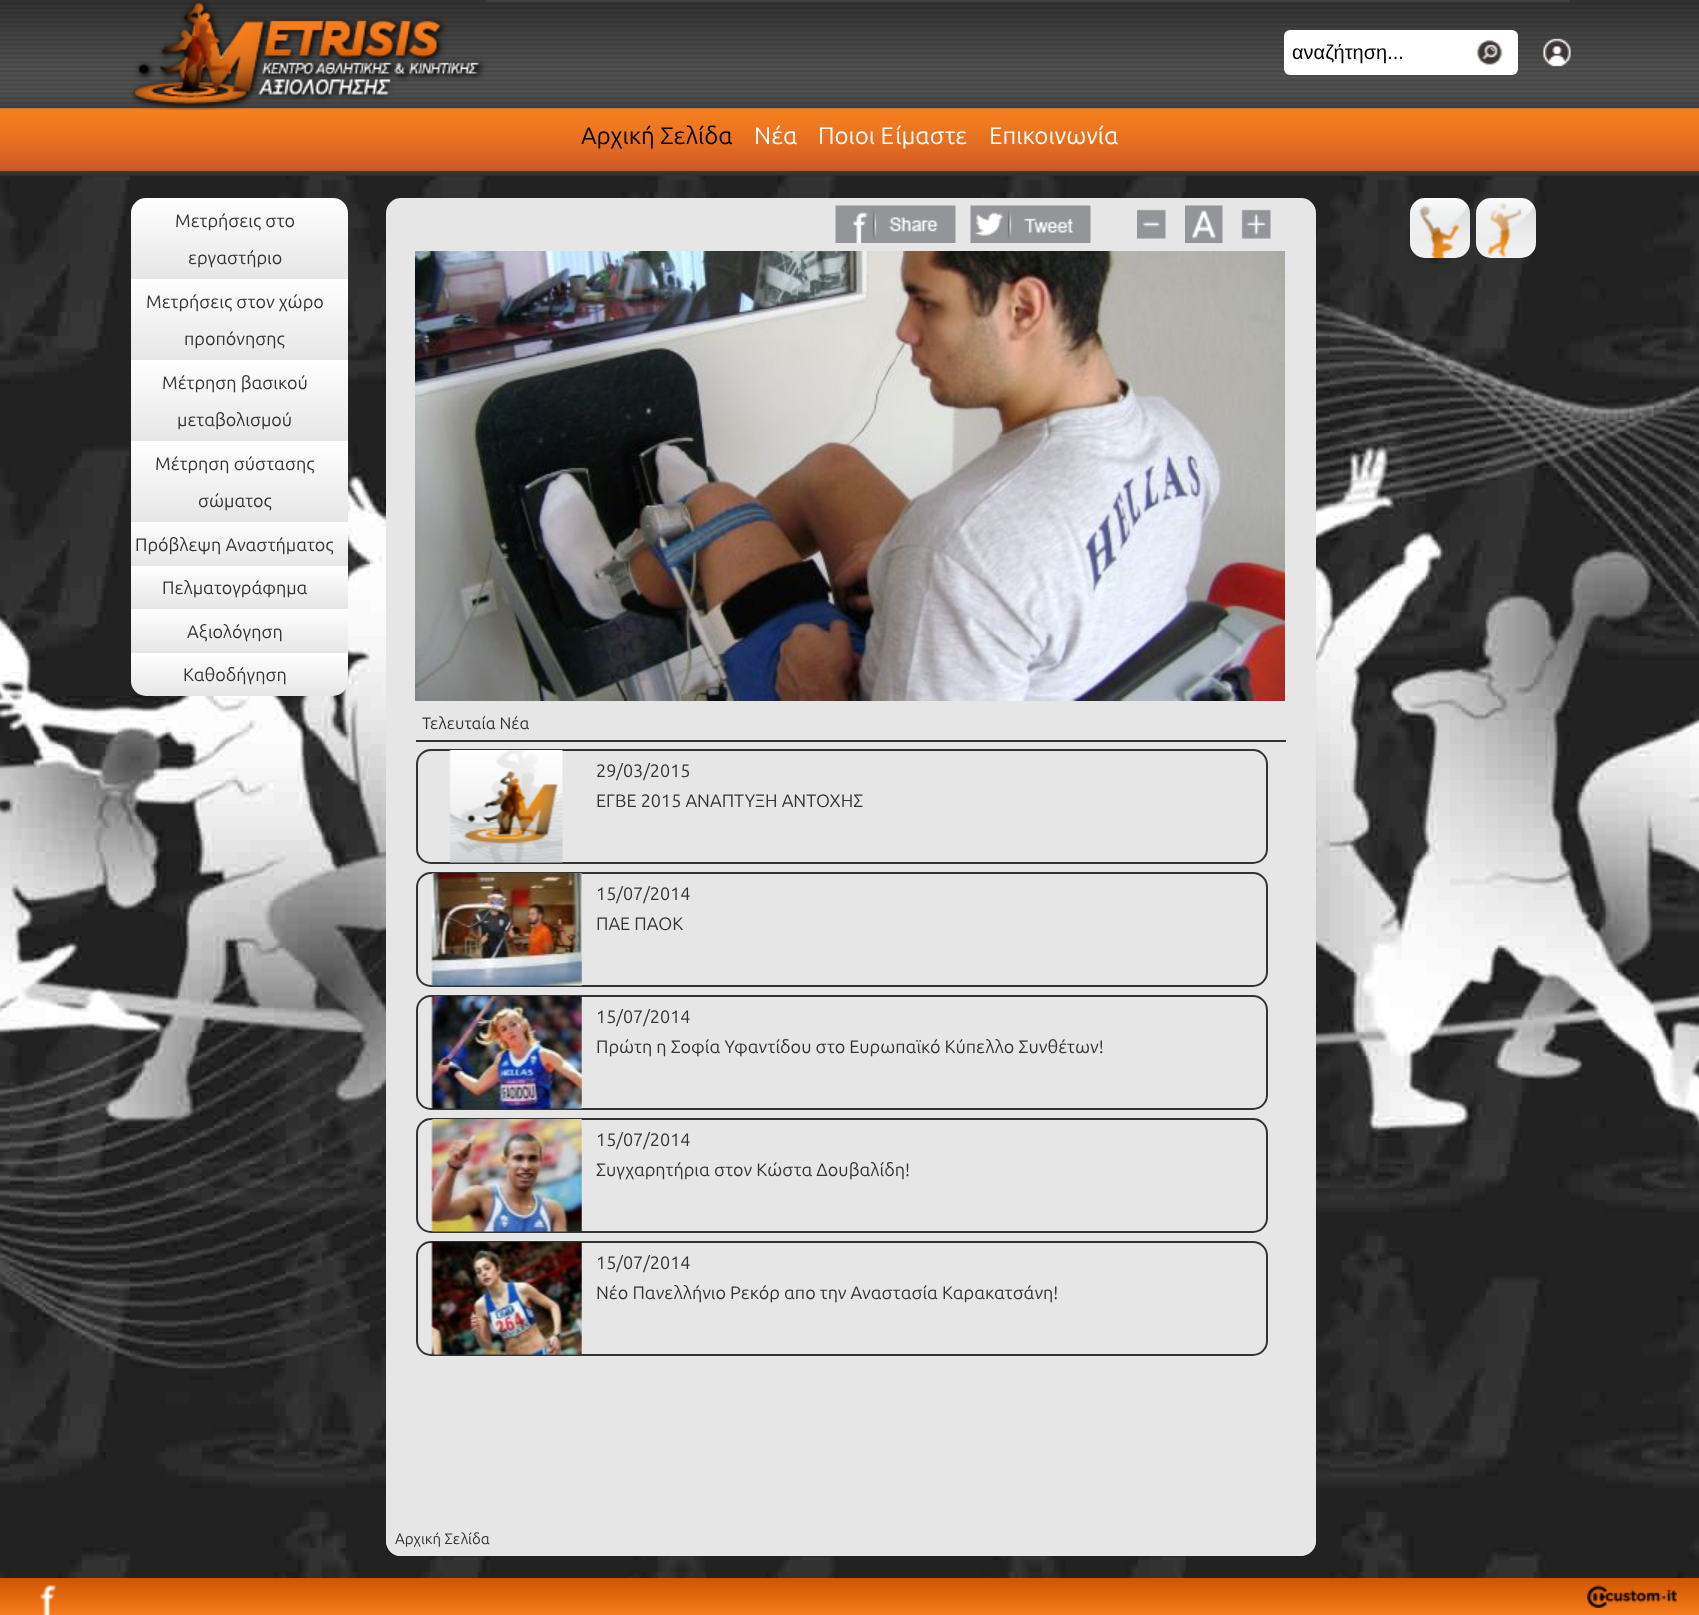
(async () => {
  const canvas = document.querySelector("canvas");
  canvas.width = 1699;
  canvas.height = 1615;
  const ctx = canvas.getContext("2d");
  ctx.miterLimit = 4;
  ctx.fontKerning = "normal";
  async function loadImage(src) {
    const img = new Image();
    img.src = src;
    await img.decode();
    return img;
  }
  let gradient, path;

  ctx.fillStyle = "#ffffff";
  ctx.fillRect(0, 0, 1699, 1615);
  ctx.drawImage(await loadImage("img/1.png"), 0, 175, 1699, 1403);
  ctx.drawImage(await loadImage("img/6.png"), 0, 0, 1699, 176);
  ctx.drawImage(await loadImage("img/2.png"), 131, 0, 354, 110);
  ctx.drawImage(await loadImage("img/3.png"), 485, 0, 1085, 3);
  ctx.beginPath();
  ctx.roundRect(1323, 30, 195, 45, 6);
  ctx.fill();
  ctx.beginPath();
  ctx.roundRect(1285, 31, 181, 43, 5);
  ctx.fill();
  ctx.strokeStyle = "#ffffff";
  ctx.lineWidth = 2;
  ctx.stroke();
  ctx.drawImage(await loadImage("img/4.png"), 1476, 40, 27, 25);
  ctx.drawImage(await loadImage("img/5.png"), 1542, 38, 29, 29);
  gradient = ctx.createLinearGradient(131, 198, 131, 279);
  gradient.addColorStop(0, "#ffffff");
  gradient.addColorStop(1, "#e6e6e6");
  ctx.fillStyle = gradient;
  ctx.beginPath();
  ctx.roundRect(131, 198, 217, 81, [15, 15, 0, 0]);
  ctx.fill();
  gradient = ctx.createLinearGradient(131, 279, 131, 360);
  gradient.addColorStop(0, "#ffffff");
  gradient.addColorStop(1, "#e6e6e6");
  ctx.fillStyle = gradient;
  ctx.fillRect(131, 279, 217, 81);
  gradient = ctx.createLinearGradient(131, 360, 131, 441);
  gradient.addColorStop(0, "#ffffff");
  gradient.addColorStop(1, "#e6e6e6");
  ctx.fillStyle = gradient;
  ctx.fillRect(131, 360, 217, 81);
  gradient = ctx.createLinearGradient(131, 441, 131, 522);
  gradient.addColorStop(0, "#ffffff");
  gradient.addColorStop(1, "#e6e6e6");
  ctx.fillStyle = gradient;
  ctx.fillRect(131, 441, 217, 81);
  gradient = ctx.createLinearGradient(131, 522, 131, 566);
  gradient.addColorStop(0, "#ffffff");
  gradient.addColorStop(1, "#e6e6e6");
  ctx.fillStyle = gradient;
  ctx.fillRect(131, 522, 217, 44);
  gradient = ctx.createLinearGradient(131, 566, 131, 609);
  gradient.addColorStop(0, "#ffffff");
  gradient.addColorStop(1, "#e6e6e6");
  ctx.fillStyle = gradient;
  ctx.fillRect(131, 566, 217, 43);
  gradient = ctx.createLinearGradient(131, 609, 131, 653);
  gradient.addColorStop(0, "#ffffff");
  gradient.addColorStop(1, "#e6e6e6");
  ctx.fillStyle = gradient;
  ctx.fillRect(131, 609, 217, 44);
  gradient = ctx.createLinearGradient(131, 653, 131, 696);
  gradient.addColorStop(0, "#ffffff");
  gradient.addColorStop(1, "#e6e6e6");
  ctx.fillStyle = gradient;
  ctx.beginPath();
  ctx.roundRect(131, 653, 217, 43, [0, 0, 15, 15]);
  ctx.fill();
  ctx.drawImage(await loadImage("img/7.png"), 1410, 198, 60, 60);
  ctx.drawImage(await loadImage("img/8.png"), 1476, 198, 60, 60);
  ctx.fillStyle = "#e6e6e6";
  ctx.beginPath();
  ctx.roundRect(386, 198, 930, 1328, [15, 15, 0, 0]);
  ctx.fill();
  ctx.drawImage(await loadImage("img/9.png"), 835, 205, 121, 38);
  ctx.drawImage(await loadImage("img/10.png"), 970, 205, 121, 38);
  ctx.drawImage(await loadImage("img/11.png"), 1137, 209, 29, 30);
  ctx.drawImage(await loadImage("img/12.png"), 1185, 205, 38, 38);
  ctx.drawImage(await loadImage("img/13.png"), 1241, 209, 30, 30);
  ctx.drawImage(await loadImage("img/14.png"), 415, 251, 870, 450);
  ctx.fillStyle = "#333333";
  ctx.fillRect(416, 740, 870, 2);
  ctx.beginPath();
  ctx.roundRect(417, 750, 850, 113, 14);
  ctx.strokeStyle = "#333333";
  ctx.stroke();
  ctx.drawImage(await loadImage("img/15.png"), 449, 750, 114, 113);
  ctx.beginPath();
  ctx.roundRect(417, 873, 850, 113, 14);
  ctx.stroke();
  ctx.drawImage(await loadImage("img/16.png"), 431, 873, 151, 113);
  ctx.beginPath();
  ctx.roundRect(417, 996, 850, 113, 14);
  ctx.stroke();
  ctx.drawImage(await loadImage("img/17.png"), 431, 996, 151, 113);
  ctx.beginPath();
  ctx.roundRect(417, 1119, 850, 113, 14);
  ctx.stroke();
  ctx.drawImage(await loadImage("img/18.png"), 431, 1119, 151, 113);
  ctx.beginPath();
  ctx.roundRect(417, 1242, 850, 113, 14);
  ctx.stroke();
  ctx.drawImage(await loadImage("img/19.png"), 431, 1242, 151, 113);
  ctx.fillStyle = "#e6e6e6";
  ctx.beginPath();
  ctx.roundRect(386, 1524, 930, 32, [0, 0, 15, 15]);
  ctx.fill();
  path = new Path2D("M386 1524H1316V1540C1316 1549 1309 1556 1300 1556H400C392 1556 386 1549 386 1540ZM388 1524H1312V1540C1312 1548 1307 1554 1300 1554H400C394 1554 388 1548 388 1540Z");
  ctx.fill(path, "evenodd");
  gradient = ctx.createLinearGradient(0, 1578, 0, 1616);
  gradient.addColorStop(0, "#cf5400");
  gradient.addColorStop(1, "#f77e1e");
  ctx.fillStyle = gradient;
  ctx.fillRect(0, 1578, 1699, 37);
  ctx.drawImage(await loadImage("img/20.png"), 40, 1585, 16, 30);
  ctx.drawImage(await loadImage("img/21.png"), 1587, 1585, 90, 23);
  ctx.font = "20px Liberation Sans";
  ctx.fillStyle = "#000000";
  ctx.fillText("αναζήτηση...", 1292, 59);
  ctx.font = "24px Ubuntu";
  ctx.fillText("Αρχική Σελίδα", 581, 144);
  ctx.fillStyle = "#ffffff";
  for (const [text, x, y] of [
    ["Νέα", 754, 144],
    ["Ποιοι Είμαστε", 818, 144],
    ["Επικοινωνία", 989, 144],
  ]) {
    ctx.fillText(text, x, y);
  }
  ctx.font = "18px Ubuntu";
  ctx.fillStyle = "#333333";
  for (const [text, x, y] of [
    ["Μετρήσεις στο", 175, 227],
    ["εργαστήριο", 188, 264],
    ["Μετρήσεις στον χώρο", 146, 308],
    ["προπόνησης", 184, 345],
    ["Μέτρηση βασικού", 162, 389],
    ["μεταβολισμού", 177, 426],
    ["Μέτρηση σύστασης", 155, 470],
    ["σώματος", 198, 507],
    ["Πρόβλεψη Αναστήματος", 135, 551],
    ["Πελματογράφημα", 162, 594],
    ["Αξιολόγηση", 187, 638],
    ["Καθοδήγηση", 183, 681],
  ]) {
    ctx.fillText(text, x, y);
  }
  ctx.font = "16.5px Ubuntu";
  ctx.fillText("Τελευταία Νέα", 422, 729);
  ctx.font = "18px Ubuntu";
  for (const [text, x, y] of [
    ["29/03/2015", 596, 777],
    ["ΕΓΒΕ 2015 ΑΝΑΠΤΥΞΗ ΑΝΤΟΧΗΣ", 596, 807],
    ["15/07/2014", 596, 900],
    ["ΠΑΕ ΠΑΟΚ", 596, 930],
    ["15/07/2014", 596, 1023],
    ["Πρώτη η Σοφία Υφαντίδου στο Ευρωπαϊκό Κύπελλο Συνθέτων!", 596, 1053],
    ["15/07/2014", 596, 1146],
    ["Συγχαρητήρια στον Κώστα Δουβαλίδη!", 596, 1176],
    ["15/07/2014", 596, 1269],
    ["Nέο Πανελλήνιο Ρεκόρ απο την Αναστασία Καρακατσάνη!", 596, 1299],
  ]) {
    ctx.fillText(text, x, y);
  }
  ctx.font = "15px Ubuntu";
  ctx.fillText("Αρχική Σελίδα", 395, 1544);
})();
